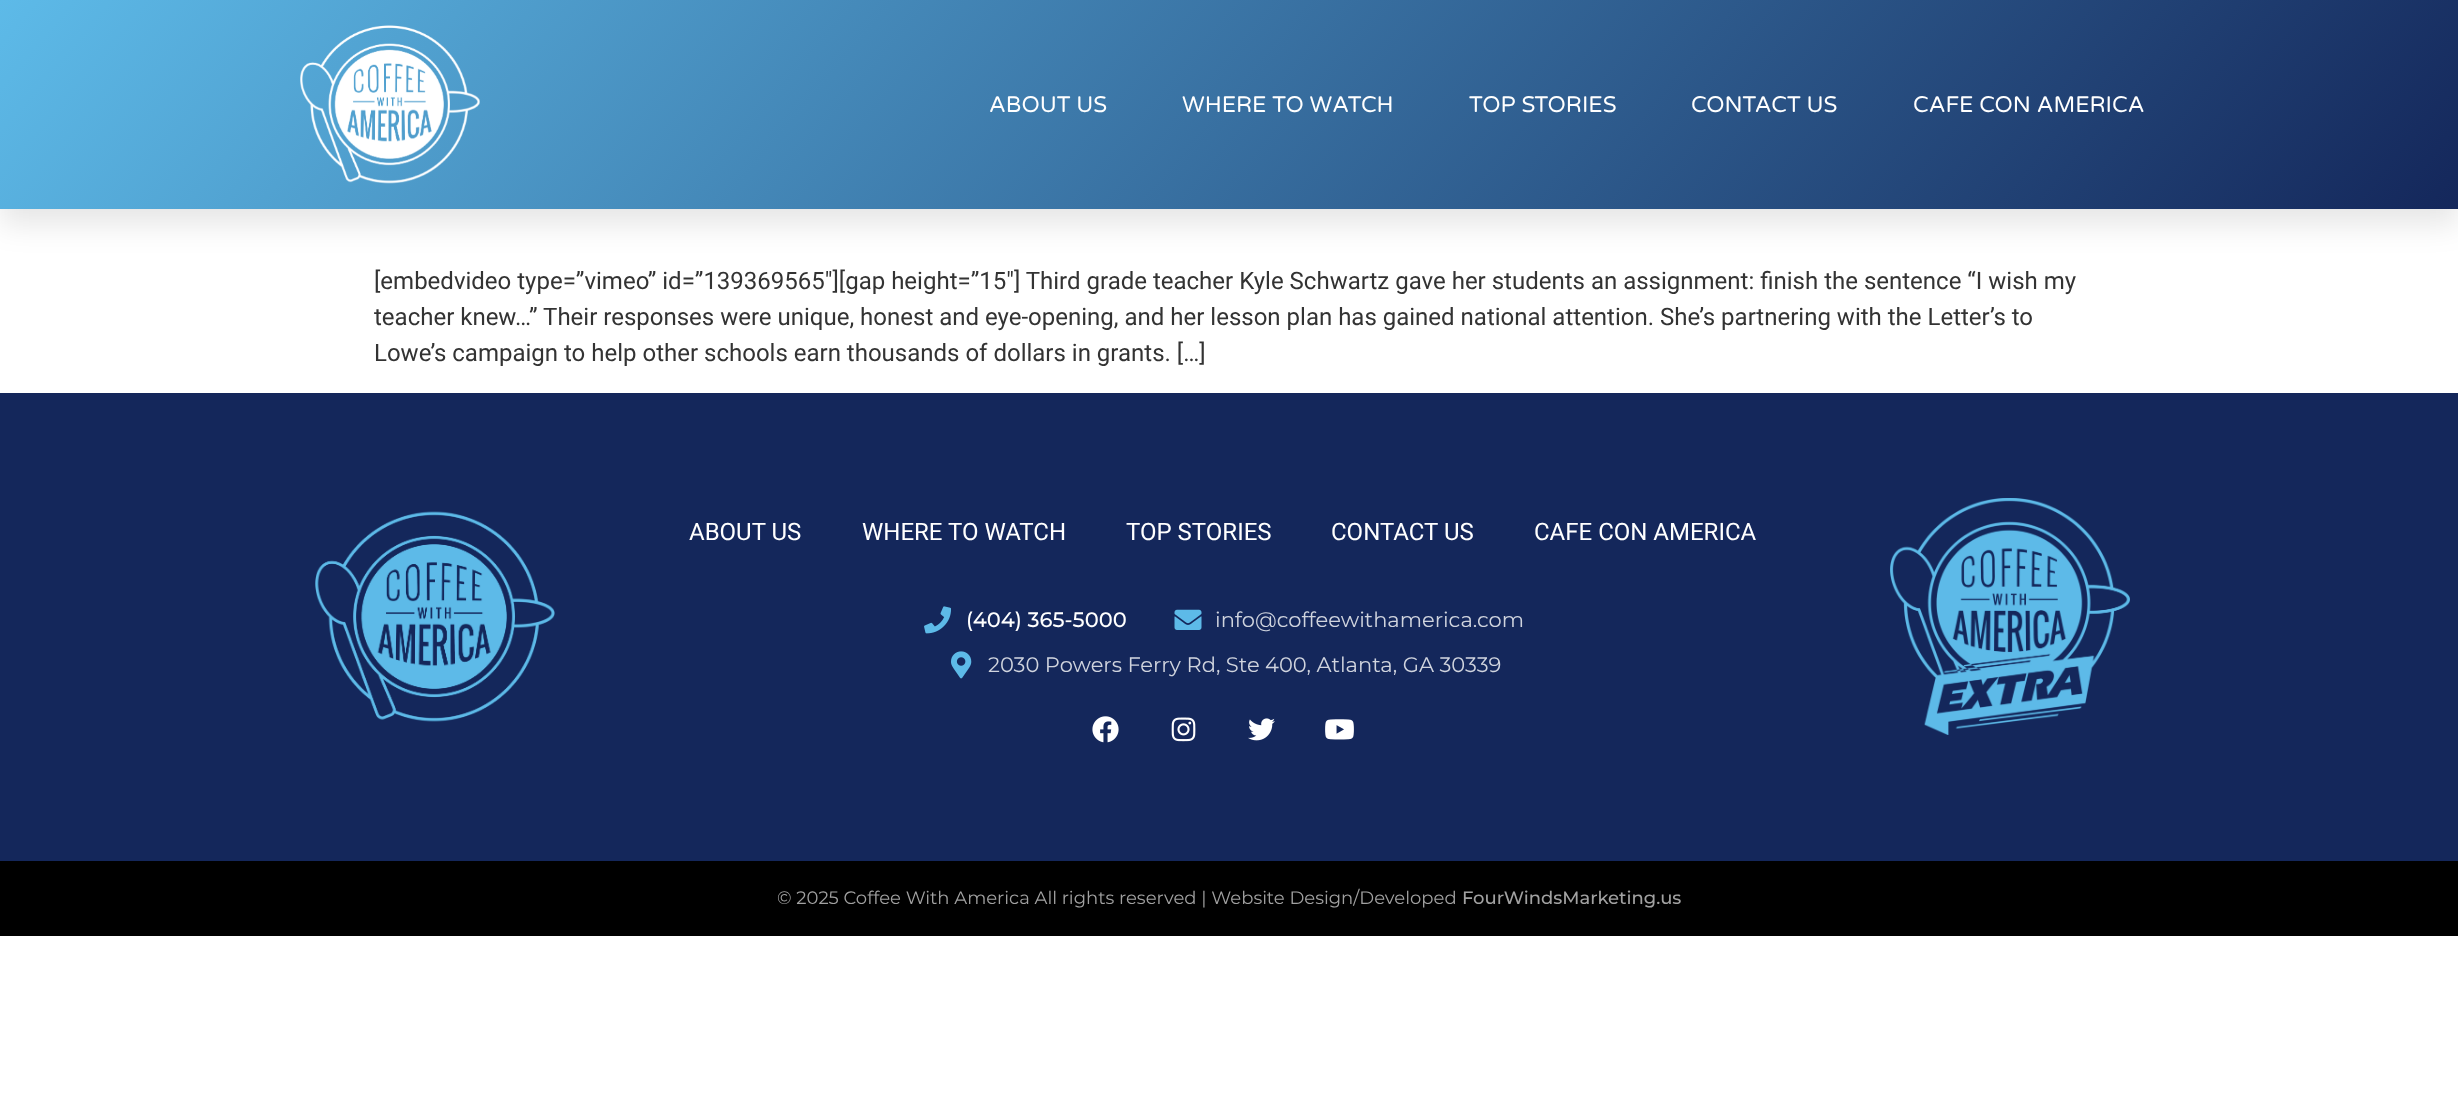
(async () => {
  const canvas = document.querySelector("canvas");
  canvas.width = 2458;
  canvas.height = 1101;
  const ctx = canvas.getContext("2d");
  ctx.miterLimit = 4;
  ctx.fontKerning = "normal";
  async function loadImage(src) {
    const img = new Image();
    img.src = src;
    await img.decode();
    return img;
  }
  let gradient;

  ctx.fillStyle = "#ffffff";
  ctx.fillRect(0, 0, 2458, 1101);
  ctx.fillStyle = "rgba(0, 0, 0, 0.1)";
  ctx.filter = "blur(15px)";
  ctx.beginPath();
  ctx.rect(0, 15, 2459, 209);
  ctx.fill();
  ctx.filter = "none";
  gradient = ctx.createLinearGradient(457, -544, 2002, 753);
  gradient.addColorStop(0, "#5dbae8");
  gradient.addColorStop(1, "#14275b");
  ctx.fillStyle = gradient;
  ctx.fillRect(0, 0, 2458, 209);
  ctx.drawImage(await loadImage("img/1.png"), 300, 25, 180, 159);
  ctx.fillStyle = "#14275b";
  ctx.fillRect(0, 393, 2458, 468);
  ctx.drawImage(await loadImage("img/2.png"), 315, 511, 240, 211);
  ctx.drawImage(await loadImage("img/3.png"), 924, 606, 27, 28);
  ctx.drawImage(await loadImage("img/4.png"), 1174, 609, 28, 21);
  ctx.drawImage(await loadImage("img/5.png"), 951, 651, 21, 28);
  ctx.drawImage(await loadImage("img/6.png"), 1092, 716, 27, 27);
  ctx.drawImage(await loadImage("img/7.png"), 1171, 717, 25, 25);
  ctx.drawImage(await loadImage("img/8.png"), 1248, 718, 27, 23);
  ctx.drawImage(await loadImage("img/9.png"), 1325, 719, 29, 21);
  ctx.drawImage(await loadImage("img/10.png"), 1890, 498, 240, 237);
  ctx.fillStyle = "#000000";
  ctx.fillRect(0, 861, 2458, 75);
  ctx.font = "22.5px Varela Round";
  ctx.fillStyle = "#ffffff";
  for (const [text, x, y] of [
    ["ABOUT US", 989, 112],
    ["WHERE TO WATCH", 1182, 112],
    ["TOP STORIES", 1469, 112],
    ["CONTACT US", 1691, 112],
    ["CAFE CON AMERICA", 1913, 112],
  ]) {
    ctx.fillText(text, x, y);
  }
  ctx.font = "24px Roboto";
  ctx.fillStyle = "#333333";
  for (const [text, x, y] of [
    ["[embedvideo type=”vimeo” id=”139369565″][gap height=”15″] Third grade teacher Kyle Schwartz gave her students an assignment: finish the sentence “I wish my", 374, 289],
    ["teacher knew…” Their responses were unique, honest and eye-opening, and her lesson plan has gained national attention. She’s partnering with the Letter’s to", 374, 325],
    ["Lowe’s campaign to help other schools earn thousands of dollars in grants. […]", 374, 361],
  ]) {
    ctx.fillText(text, x, y);
  }
  ctx.fillStyle = "#ffffff";
  for (const [text, x, y] of [
    ["ABOUT US", 689, 540],
    ["WHERE TO WATCH", 862, 540],
    ["TOP STORIES", 1126, 540],
    ["CONTACT US", 1331, 540],
    ["CAFE CON AMERICA", 1534, 540],
  ]) {
    ctx.fillText(text, x, y);
  }
  ctx.font = "500 21px Montserrat";
  ctx.fillText("(404) 365-5000", 966, 627);
  ctx.font = "21px Montserrat";
  ctx.fillStyle = "#d0d4de";
  ctx.fillText("info@coffeewithamerica.com", 1215, 627);
  ctx.fillText("2030 Powers Ferry Rd, Ste 400, Atlanta, GA 30339", 988, 672);
  ctx.font = "18px Montserrat";
  ctx.fillStyle = "#a1a1a1";
  ctx.fillText("© 2025 Coffee With America All rights reserved | Website Design/Developed", 777, 904);
  ctx.font = "500 18px Montserrat";
  ctx.fillText("FourWindsMarketing.us", 1462, 904);
})();
